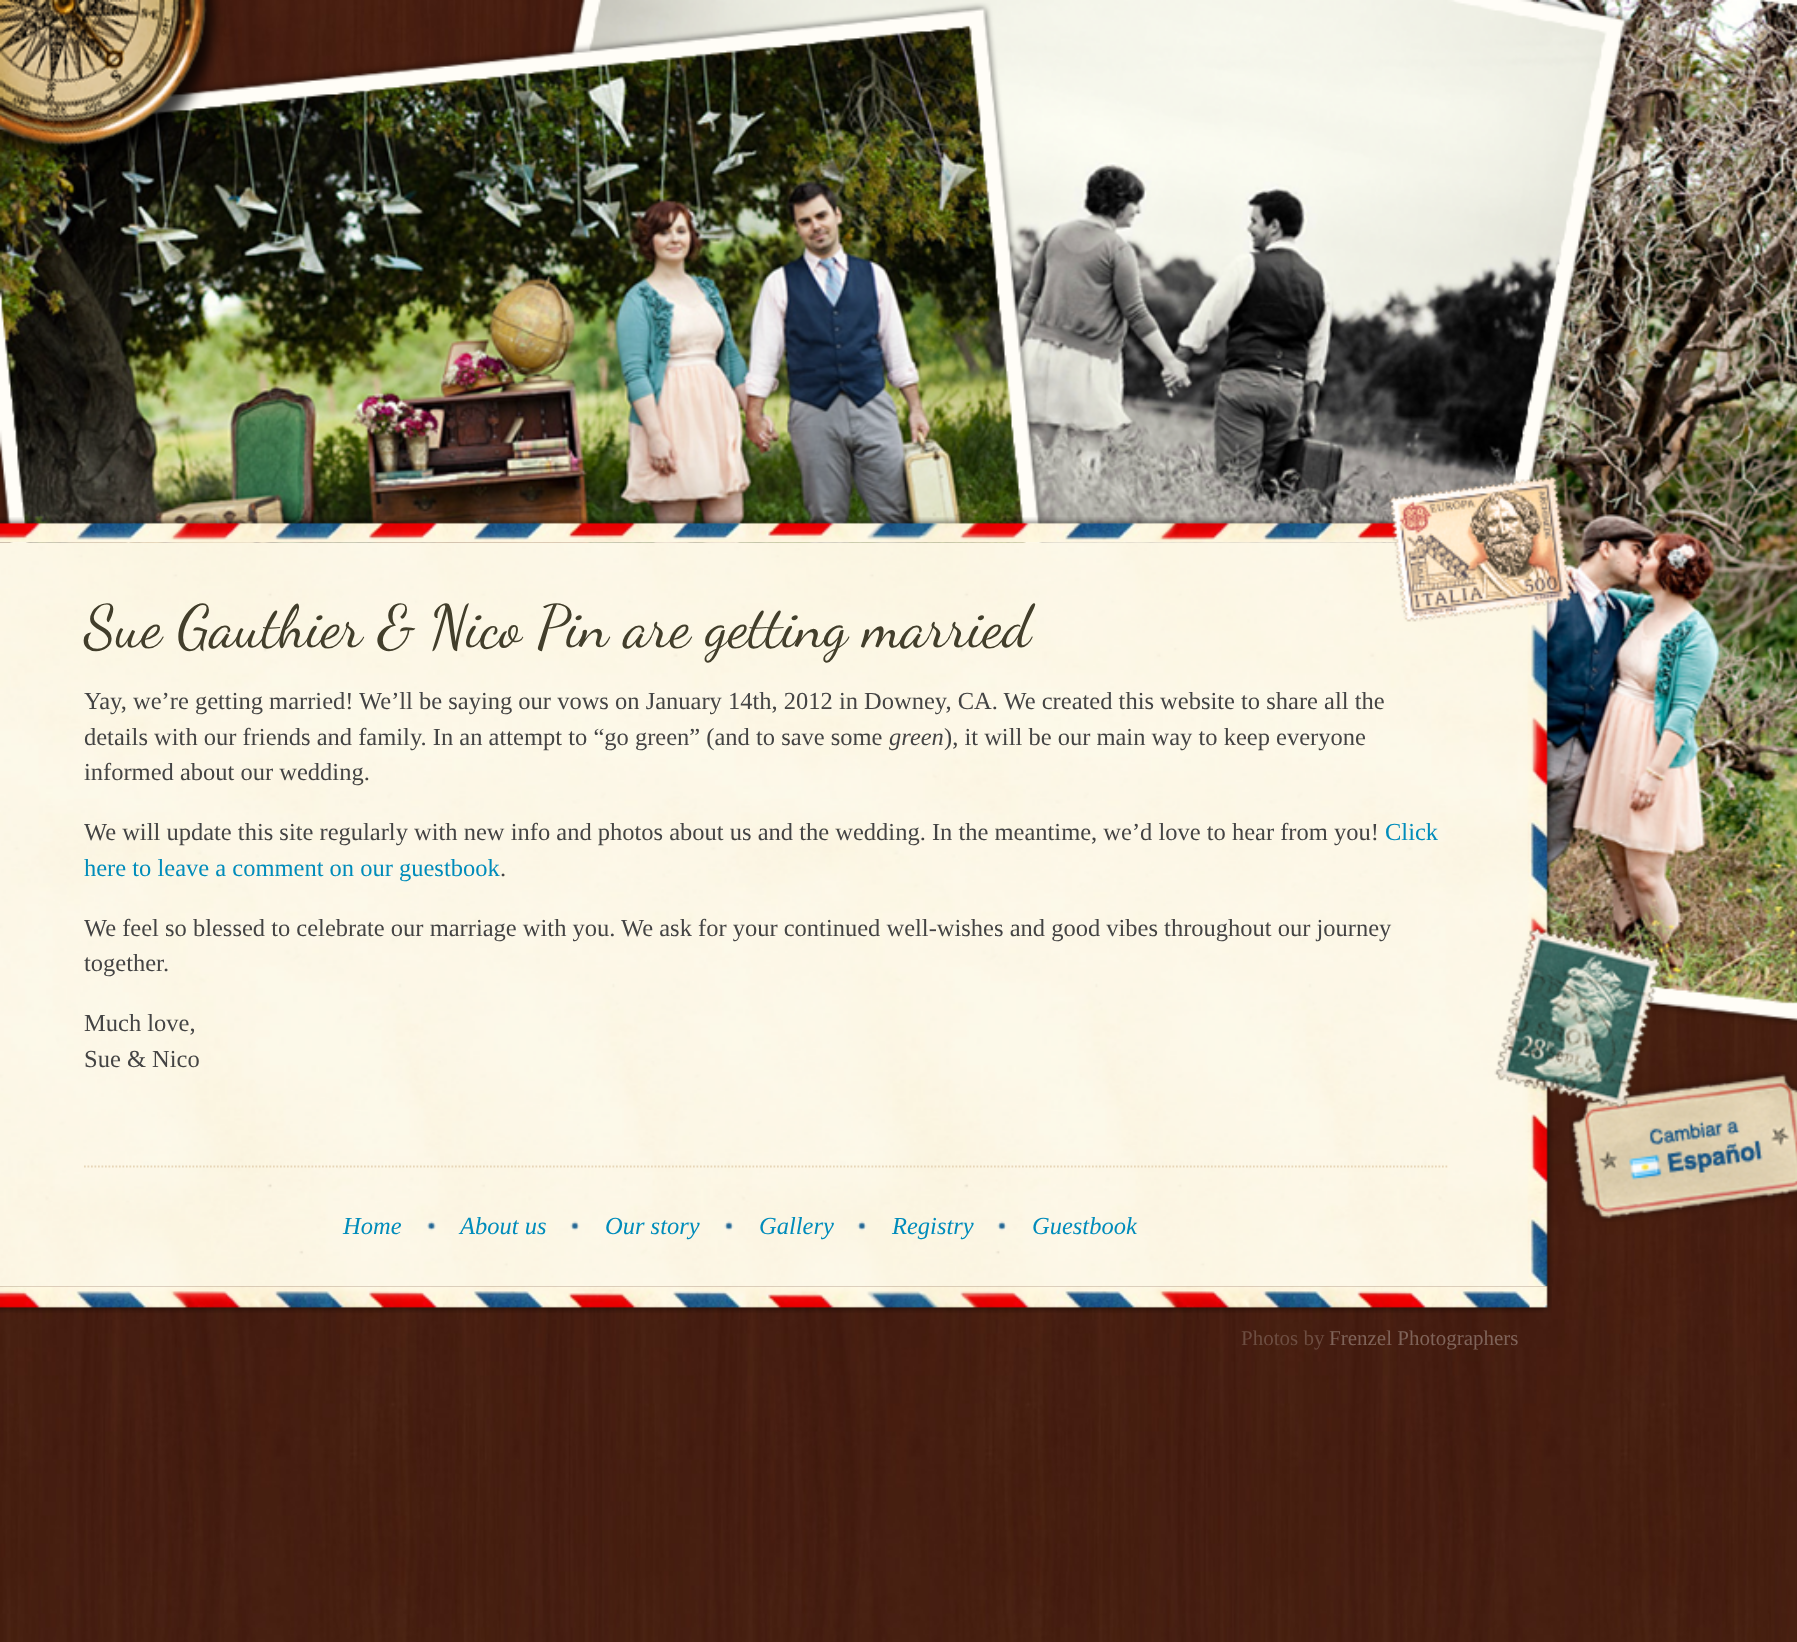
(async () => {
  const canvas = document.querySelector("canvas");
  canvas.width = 1797;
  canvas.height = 1642;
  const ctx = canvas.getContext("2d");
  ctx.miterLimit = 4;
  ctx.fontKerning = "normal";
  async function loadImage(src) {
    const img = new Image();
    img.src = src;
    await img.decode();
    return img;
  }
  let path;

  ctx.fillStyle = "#ffffff";
  ctx.fillRect(0, 0, 1797, 1642);
  ctx.drawImage(await loadImage("img/1.png"), 0, 0, 1797, 1642);
  ctx.drawImage(await loadImage("img/2.png"), 0, 0, 1797, 1025);
  ctx.drawImage(await loadImage("img/3.png"), 0, 517, 1400, 26);
  ctx.drawImage(await loadImage("img/4.png"), 0, 542, 1554, 745);
  ctx.drawImage(await loadImage("img/5.png"), 1389, 475, 183, 147);
  ctx.drawImage(await loadImage("img/7.png"), 1569, 1072, 228, 150);
  ctx.drawImage(await loadImage("img/6.png"), 1494, 927, 167, 182);
  path = new Path2D("M84 1166.5H1449");
  ctx.strokeStyle = "#e7d6b8";
  ctx.lineWidth = 1.8;
  ctx.setLineDash([1.75, 1.75]);
  ctx.stroke(path);
  ctx.drawImage(await loadImage("img/8.png"), 427, 1221, 9, 10);
  ctx.drawImage(await loadImage("img/9.png"), 570, 1221, 10, 10);
  ctx.drawImage(await loadImage("img/10.png"), 724, 1221, 10, 10);
  ctx.drawImage(await loadImage("img/11.png"), 857, 1221, 10, 10);
  ctx.drawImage(await loadImage("img/12.png"), 997, 1221, 10, 10);
  ctx.drawImage(await loadImage("img/13.png"), 0, 1286, 1552, 27);
  ctx.font = "59.5px Dancing Script";
  ctx.fillStyle = "#423e2b";
  ctx.fillText("Sue Gauthier & Nico Pin are getting married", 84, 646);
  ctx.font = "24.5px Liberation Serif";
  ctx.fillStyle = "#444444";
  ctx.fillText("Yay, we’re getting married! We’ll be saying our vows on January 14th, 2012 in Downey, CA. We created this website to share all the", 84, 709);
  ctx.fillText("details with our friends and family. In an attempt to “go green” (and to save some", 84, 745);
  ctx.font = "italic 24.5px Liberation Serif";
  ctx.fillText("green", 889, 745);
  ctx.font = "24.5px Liberation Serif";
  for (const [text, x, y] of [
    ["), it will be our main way to keep everyone", 944, 745],
    ["informed about our wedding.", 84, 780],
    ["We will update this site regularly with new info and photos about us and the wedding. In the meantime, we’d love to hear from you!", 84, 840],
  ]) {
    ctx.fillText(text, x, y);
  }
  ctx.fillStyle = "#008cbb";
  ctx.fillText("Click", 1385, 840);
  ctx.fillText("here to leave a comment on our guestbook", 84, 876);
  ctx.fillStyle = "#444444";
  for (const [text, x, y] of [
    [".", 500, 876],
    ["We feel so blessed to celebrate our marriage with you. We ask for your continued well-wishes and good vibes throughout our journey", 84, 936],
    ["together.", 84, 971],
    ["Much love,", 84, 1031],
    ["Sue & Nico", 84, 1067],
  ]) {
    ctx.fillText(text, x, y);
  }
  ctx.font = "italic 24.5px Liberation Serif";
  ctx.fillStyle = "#008cbb";
  for (const [text, x, y] of [
    ["Home", 343, 1234],
    ["About us", 460, 1234],
    ["Our story", 605, 1234],
    ["Gallery", 759, 1234],
    ["Registry", 892, 1234],
    ["Guestbook", 1032, 1234],
  ]) {
    ctx.fillText(text, x, y);
  }
  ctx.font = "21px Liberation Serif";
  ctx.fillStyle = "#6d4d41";
  ctx.fillText("Photos by", 1241, 1345);
  ctx.fillStyle = "#7f6359";
  ctx.fillText("Frenzel Photographers", 1329, 1345);
})();
